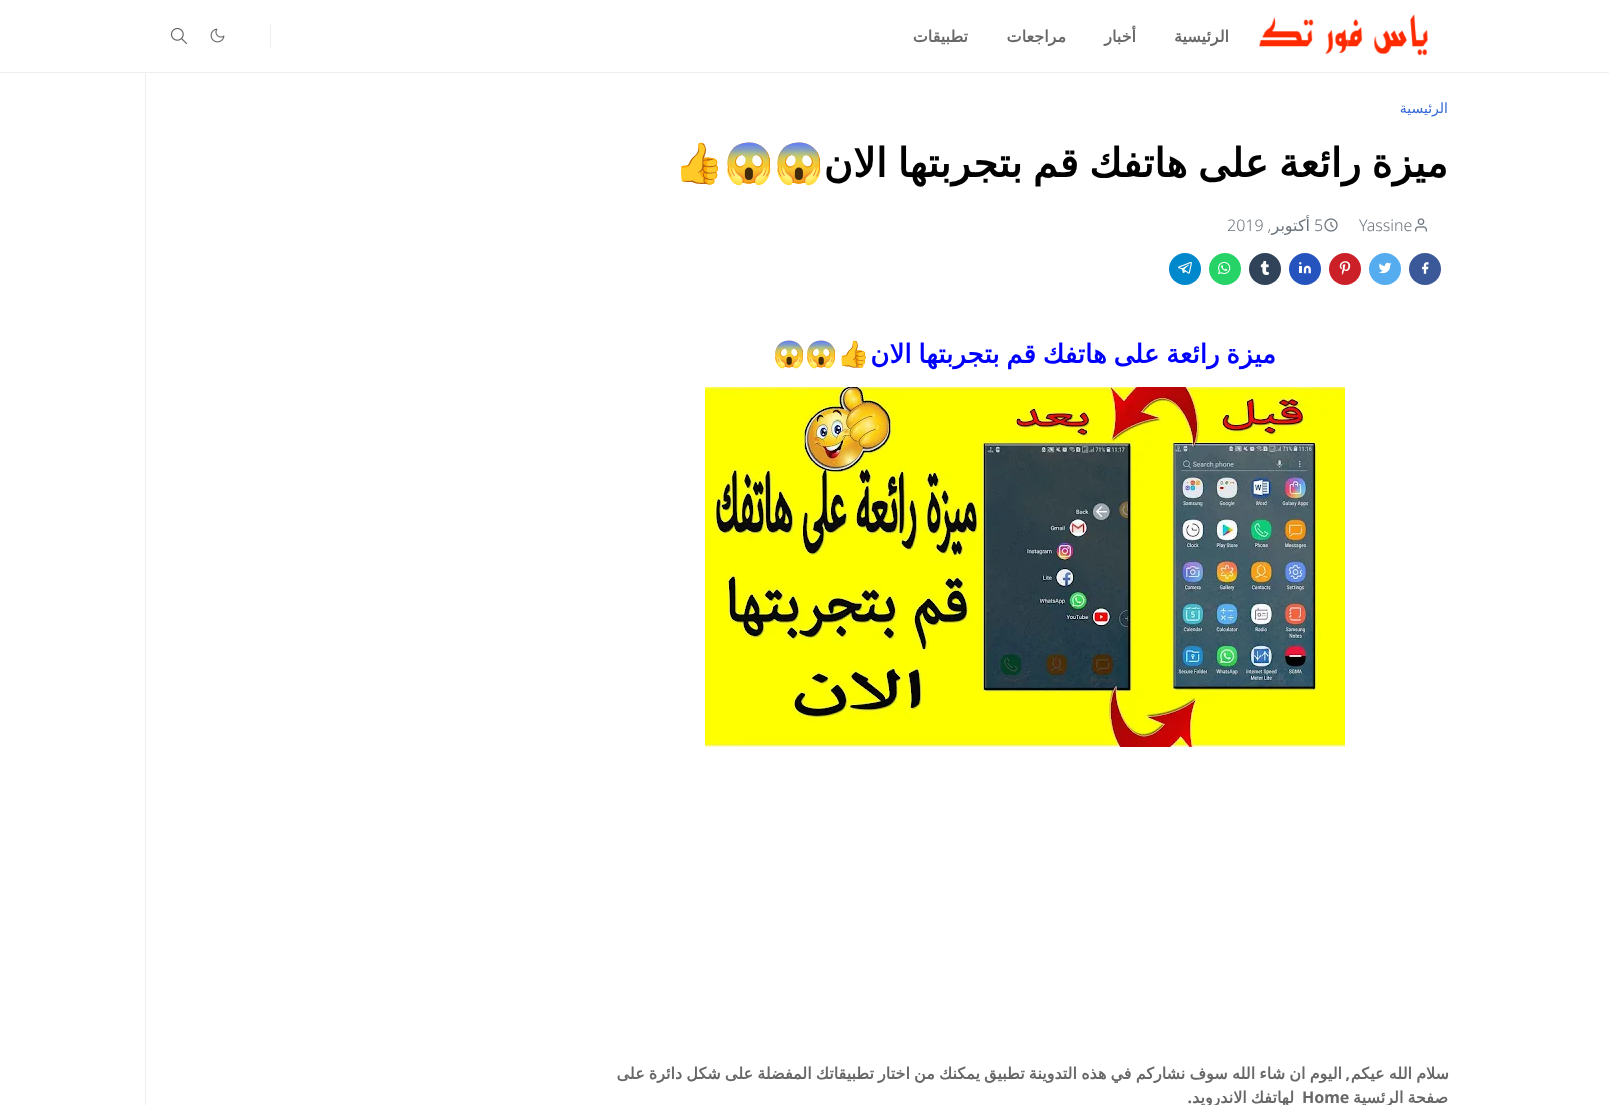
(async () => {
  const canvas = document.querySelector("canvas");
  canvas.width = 1609;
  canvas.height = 1105;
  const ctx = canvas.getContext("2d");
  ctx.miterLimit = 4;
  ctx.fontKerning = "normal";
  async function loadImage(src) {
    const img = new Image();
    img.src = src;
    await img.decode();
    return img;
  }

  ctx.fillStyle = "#ffffff";
  ctx.fillRect(0, 0, 1609, 1105);
  ctx.fillStyle = "#efefef";
  ctx.fillRect(0, 72, 1609, 1);
  ctx.drawImage(await loadImage("img/1.png"), 1259, 14, 169, 42);
  ctx.fillRect(270, 24, 1, 24);
  ctx.drawImage(await loadImage("img/2.png"), 210, 28, 15, 15);
  ctx.drawImage(await loadImage("img/3.png"), 170, 27, 18, 18);
  ctx.drawImage(await loadImage("img/4.png"), 1415, 218, 12, 14);
  ctx.drawImage(await loadImage("img/5.png"), 1324, 218, 14, 14);
  ctx.fillStyle = "#3b5998";
  ctx.beginPath();
  ctx.arc(1425, 269, 16, 0, Math.PI * 2);
  ctx.fill();
  ctx.drawImage(await loadImage("img/6.png"), 1422, 262, 7, 12);
  ctx.fillStyle = "#55acee";
  ctx.beginPath();
  ctx.arc(1385, 269, 16, 0, Math.PI * 2);
  ctx.fill();
  ctx.drawImage(await loadImage("img/7.png"), 1378, 262, 14, 12);
  ctx.fillStyle = "#cb2027";
  ctx.beginPath();
  ctx.arc(1345, 269, 16, 0, Math.PI * 2);
  ctx.fill();
  ctx.drawImage(await loadImage("img/8.png"), 1339, 261, 12, 14);
  ctx.fillStyle = "#2554bf";
  ctx.beginPath();
  ctx.arc(1305, 269, 16, 0, Math.PI * 2);
  ctx.fill();
  ctx.drawImage(await loadImage("img/9.png"), 1299, 262, 12, 12);
  ctx.fillStyle = "#314358";
  ctx.beginPath();
  ctx.arc(1265, 269, 16, 0, Math.PI * 2);
  ctx.fill();
  ctx.drawImage(await loadImage("img/10.png"), 1260, 261, 10, 14);
  ctx.fillStyle = "#25d366";
  ctx.beginPath();
  ctx.arc(1225, 269, 16, 0, Math.PI * 2);
  ctx.fill();
  ctx.drawImage(await loadImage("img/11.png"), 1218, 261, 13, 14);
  ctx.fillStyle = "#0088cc";
  ctx.beginPath();
  ctx.arc(1185, 269, 16, 0, Math.PI * 2);
  ctx.fill();
  ctx.drawImage(await loadImage("img/12.png"), 1178, 261, 14, 13);
  ctx.drawImage(await loadImage("img/13.png"), 705, 387, 640, 360);
  ctx.fillStyle = "#efefef";
  ctx.fillRect(145, 73, 1, 1032);
  ctx.direction = "rtl";
  ctx.font = "bold 16px DejaVu Sans";
  ctx.fillStyle = "#686868";
  for (const [text, x, y] of [
    ["الرئيسية", 1229, 42],
    ["أخبار", 1136, 42],
    ["مراجعات", 1066, 42],
    ["تطبيقات", 968, 42],
  ]) {
    ctx.fillText(text, x, y);
  }
  ctx.font = "14px DejaVu Sans";
  ctx.fillStyle = "#3367d6";
  ctx.fillText("الرئيسية", 1448, 113);
  ctx.wordSpacing = "-2.25px";
  ctx.font = "bold 40px DejaVu Sans";
  ctx.fillStyle = "#000000";
  ctx.fillText("ميزة رائعة على هاتفك قم بتجربتها الان", 1448, 177);
  ctx.wordSpacing = "0px";
  ctx.font = "bold 40px Noto Color Emoji";
  ctx.fillText("😱😱👍", 824, 177);
  ctx.direction = "ltr";
  ctx.font = "300 16px Noto Sans";
  ctx.fillStyle = "#6c757d";
  ctx.fillText("Yassine", 1359, 231);
  ctx.fillText("5", 1314, 231);
  ctx.direction = "rtl";
  ctx.fillText(",", 1271, 231);
  ctx.font = "16px DejaVu Sans";
  ctx.fillText("أكتوبر", 1310, 231);
  ctx.direction = "ltr";
  ctx.font = "300 16px Noto Sans";
  ctx.fillText("2019", 1227, 231);
  ctx.wordSpacing = "-1.5px";
  ctx.direction = "rtl";
  ctx.font = "bold 26px DejaVu Sans";
  ctx.fillStyle = "#0000ff";
  ctx.fillText("ميزة رائعة على هاتفك قم بتجربتها الان", 1276, 363);
  ctx.wordSpacing = "0px";
  ctx.direction = "ltr";
  ctx.font = "bold 26px Noto Color Emoji";
  ctx.fillStyle = "#000000";
  ctx.fillText("😱😱👍", 773, 363);
  ctx.wordSpacing = "-0.9px";
  ctx.direction = "rtl";
  ctx.font = "bold 16px DejaVu Sans";
  ctx.fillStyle = "#686868";
  ctx.fillText("سلام الله عيكم", 1449, 1079);
  ctx.fillText("اليوم ان شاء الله سوف نشاركم في هذه التدوينة تطبيق يمكنك من اختار تطبيقاتك المفضلة على شكل دائرة على", 1342, 1079);
  ctx.wordSpacing = "0px";
  ctx.font = "bold 16px Noto Sans";
  ctx.fillText(",", 1350, 1079);
  ctx.wordSpacing = "-1px";
  ctx.font = "bold 16px DejaVu Sans";
  ctx.fillText("صفحة الرئسية", 1448, 1103);
  ctx.wordSpacing = "0px";
  ctx.direction = "ltr";
  ctx.font = "bold 16px Noto Sans";
  ctx.fillText("Home", 1302, 1103);
  ctx.wordSpacing = "-1px";
  ctx.direction = "rtl";
  ctx.font = "bold 16px DejaVu Sans";
  ctx.fillText("لهاتفك الاندرويد", 1294, 1103);
  ctx.wordSpacing = "0px";
  ctx.font = "bold 16px Noto Sans";
  ctx.fillText(".", 1192, 1103);
})();
